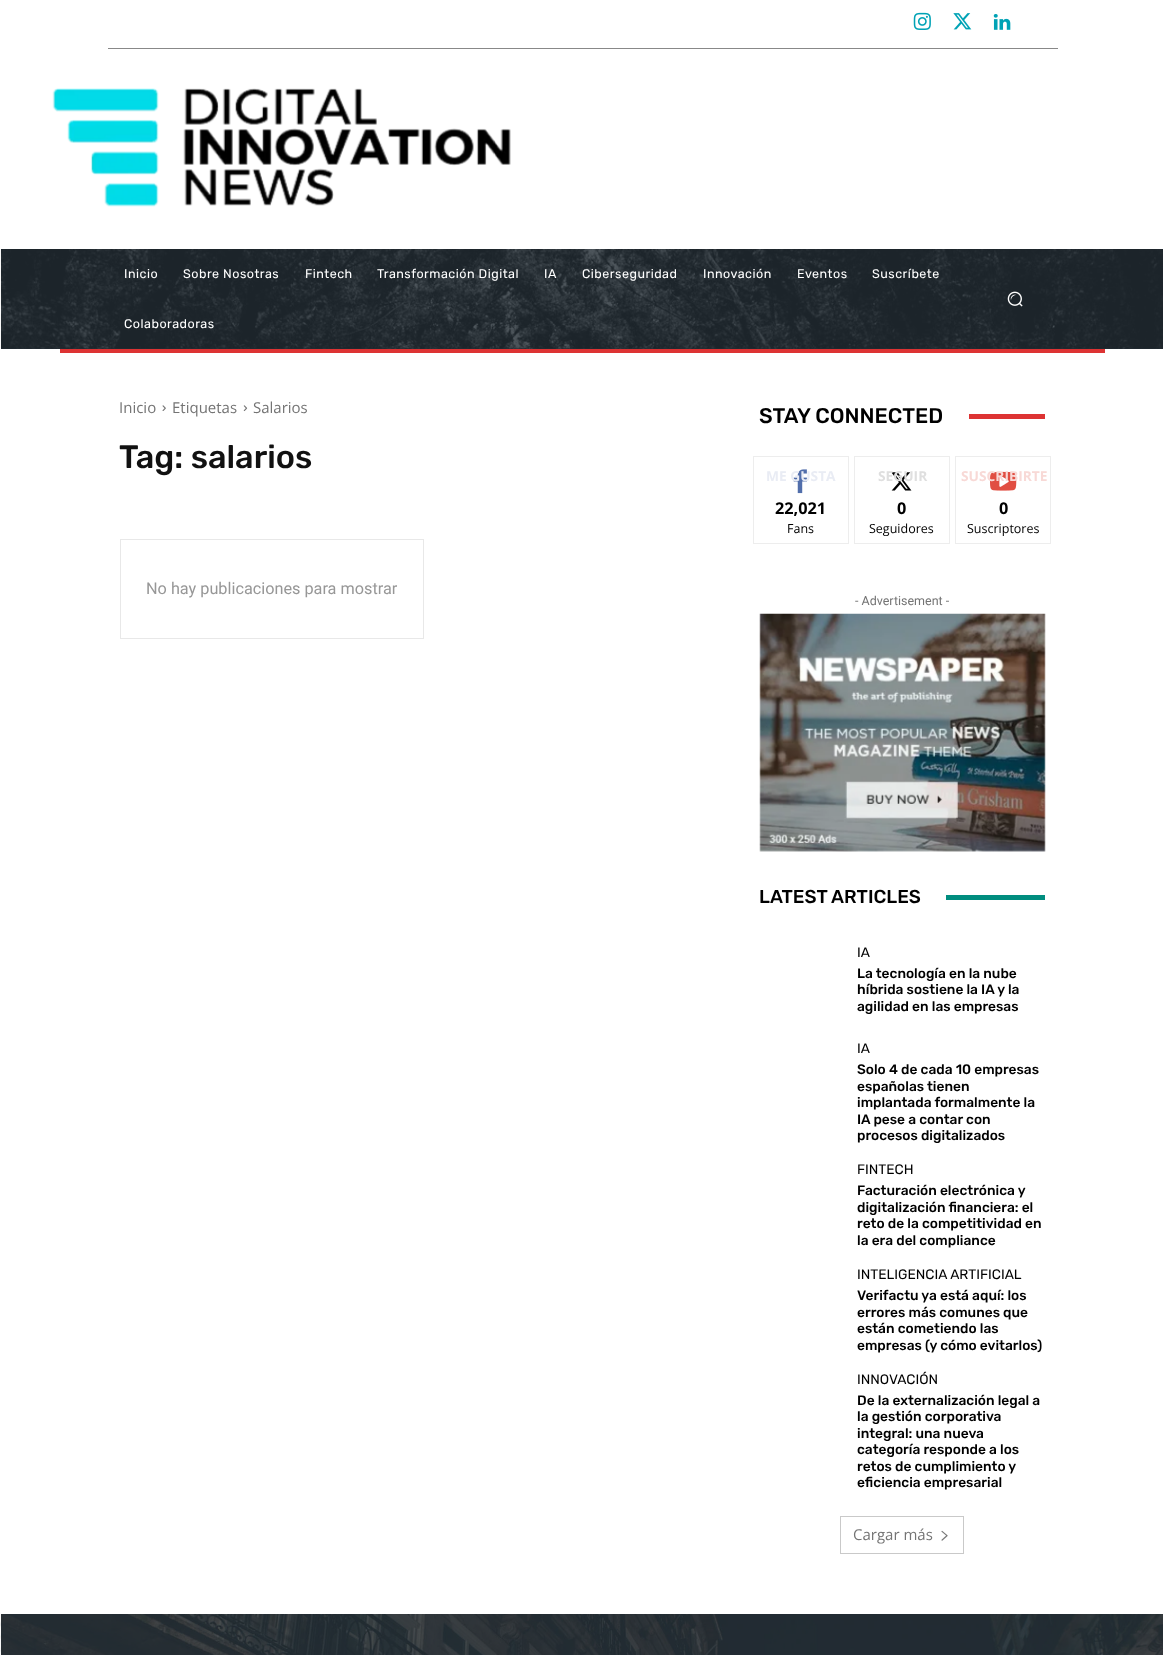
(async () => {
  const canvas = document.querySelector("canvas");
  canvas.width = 1163;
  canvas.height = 1655;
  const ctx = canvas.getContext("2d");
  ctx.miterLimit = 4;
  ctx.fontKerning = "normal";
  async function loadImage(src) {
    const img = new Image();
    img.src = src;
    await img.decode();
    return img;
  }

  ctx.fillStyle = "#ffffff";
  ctx.fillRect(0, 0, 1163, 1655);
  ctx.drawImage(await loadImage("img/1.png"), 0, 1614, 1, 41);
  ctx.fillStyle = "#888888";
  ctx.fillRect(108, 48, 950, 1);
  ctx.drawImage(await loadImage("img/2.png"), 913, 12, 18, 18);
  ctx.drawImage(await loadImage("img/3.png"), 953, 13, 19, 17);
  ctx.drawImage(await loadImage("img/4.png"), 993, 14, 18, 16);
  ctx.drawImage(await loadImage("img/5.png"), 52, 88, 459, 119);
  ctx.fillStyle = "#232d35";
  ctx.fillRect(1, 249, 1162, 100);
  ctx.drawImage(await loadImage("img/6.png"), 0, 249, 1163, 100);
  ctx.drawImage(await loadImage("img/7.png"), 1007, 291, 16, 16);
  ctx.fillStyle = "#dd3333";
  ctx.fillRect(60, 349, 1045, 4);
  ctx.drawImage(await loadImage("img/8.png"), 162, 405, 4, 6);
  ctx.drawImage(await loadImage("img/9.png"), 243, 405, 5, 7);
  ctx.strokeStyle = "#e8e8e8";
  ctx.strokeRect(120.5, 539.5, 303, 99);
  ctx.fillRect(969, 414, 76, 5);
  ctx.strokeStyle = "#ededed";
  ctx.strokeRect(753.5, 456.5, 95, 87);
  ctx.drawImage(await loadImage("img/10.png"), 793, 469, 14, 25);
  ctx.strokeRect(854.5, 456.5, 95, 87);
  ctx.drawImage(await loadImage("img/11.png"), 891, 472, 21, 19);
  ctx.strokeRect(955.5, 456.5, 95, 87);
  ctx.drawImage(await loadImage("img/12.png"), 990, 471, 27, 20);
  ctx.drawImage(await loadImage("img/13.png"), 759, 613, 287, 239);
  ctx.fillStyle = "#008d7f";
  ctx.fillRect(946, 895, 99, 5);
  ctx.strokeStyle = "#c9c9c9";
  ctx.strokeRect(840.5, 1516.5, 123, 37);
  ctx.drawImage(await loadImage("img/14.png"), 941, 1530, 7, 11);
  ctx.fillStyle = "#232d35";
  ctx.fillRect(1, 1614, 1162, 41);
  ctx.drawImage(await loadImage("img/15.png"), 0, 1614, 1163, 41);
  ctx.letterSpacing = "0.5px";
  ctx.font = "12.5px Rubik";
  ctx.fillStyle = "#ffffff";
  for (const [text, x, y] of [
    ["Inicio", 124, 278],
    ["Sobre Nosotras", 183, 278],
    ["Fintech", 305, 278],
    ["Transformación Digital", 377, 278],
    ["IA", 544, 278],
    ["Ciberseguridad", 582, 278],
    ["Innovación", 703, 278],
    ["Eventos", 797, 278],
    ["Suscríbete", 872, 278],
    ["Colaboradoras", 124, 328],
  ]) {
    ctx.fillText(text, x, y);
  }
  ctx.letterSpacing = "0px";
  ctx.font = "15px Open Sans";
  ctx.fillStyle = "#747474";
  for (const [text, x, y] of [
    ["Inicio", 119, 413],
    ["Etiquetas", 172, 413],
    ["Salarios", 253, 413],
  ]) {
    ctx.fillText(text, x, y);
  }
  ctx.font = "500 32.5px Rubik";
  ctx.fillStyle = "#111111";
  ctx.fillText("Tag: salarios", 119, 468);
  ctx.font = "16.25px Roboto";
  ctx.fillStyle = "#979797";
  ctx.fillText("No hay publicaciones para mostrar", 146, 594);
  ctx.font = "500 21.25px Rubik";
  ctx.fillStyle = "#000000";
  ctx.fillText("STAY CONNECTED", 759, 423);
  ctx.font = "bold 13.75px Open Sans";
  ctx.fillStyle = "#e9ecf4";
  ctx.fillText("ME GUSTA", 766, 481);
  ctx.font = "bold 16.25px Open Sans";
  ctx.fillStyle = "#000000";
  ctx.fillText("22,021", 775, 514);
  ctx.font = "12.5px Open Sans";
  ctx.fillText("Fans", 787, 533);
  ctx.font = "bold 13.75px Open Sans";
  ctx.fillStyle = "#dfdfdf";
  ctx.fillText("SEGUIR", 878, 481);
  ctx.font = "bold 16.25px Open Sans";
  ctx.fillStyle = "#000000";
  ctx.fillText("0", 897, 514);
  ctx.font = "12.5px Open Sans";
  ctx.fillText("Seguidores", 869, 533);
  ctx.font = "bold 13.75px Open Sans";
  ctx.fillStyle = "#f8d9d6";
  ctx.fillText("SUSCRIBIRTE", 961, 481);
  ctx.font = "bold 16.25px Open Sans";
  ctx.fillStyle = "#000000";
  ctx.fillText("0", 999, 514);
  ctx.font = "12.5px Open Sans";
  ctx.fillText("Suscriptores", 967, 533);
  ctx.font = "12.5px Roboto";
  ctx.fillStyle = "#747474";
  ctx.fillText("- Advertisement -", 855, 605);
  ctx.font = "500 18.75px Rubik";
  ctx.fillStyle = "#000000";
  ctx.fillText("LATEST ARTICLES", 759, 903);
  ctx.font = "13.75px Rubik";
  ctx.fillText("IA", 857, 957);
  ctx.font = "500 13.75px Rubik";
  for (const [text, x, y] of [
    ["La tecnología en la nube", 857, 978],
    ["híbrida sostiene la IA y la", 857, 994],
    ["agilidad en las empresas", 857, 1011],
  ]) {
    ctx.fillText(text, x, y);
  }
  ctx.font = "13.75px Rubik";
  ctx.fillText("IA", 857, 1053);
  ctx.font = "500 13.75px Rubik";
  for (const [text, x, y] of [
    ["Solo 4 de cada 10 empresas", 857, 1074],
    ["españolas tienen", 857, 1091],
    ["implantada formalmente la", 857, 1107],
    ["IA pese a contar con", 857, 1124],
    ["procesos digitalizados", 857, 1140],
  ]) {
    ctx.fillText(text, x, y);
  }
  ctx.font = "13.75px Rubik";
  ctx.fillText("FINTECH", 857, 1174);
  ctx.font = "500 13.75px Rubik";
  for (const [text, x, y] of [
    ["Facturación electrónica y", 857, 1195],
    ["digitalización financiera: el", 857, 1212],
    ["reto de la competitividad en", 857, 1228],
    ["la era del compliance", 857, 1245],
  ]) {
    ctx.fillText(text, x, y);
  }
  ctx.font = "13.75px Rubik";
  ctx.fillText("INTELIGENCIA ARTIFICIAL", 857, 1279);
  ctx.font = "500 13.75px Rubik";
  for (const [text, x, y] of [
    ["Verifactu ya está aquí: los", 857, 1300],
    ["errores más comunes que", 857, 1317],
    ["están cometiendo las", 857, 1333],
    ["empresas (y cómo evitarlos)", 857, 1350],
  ]) {
    ctx.fillText(text, x, y);
  }
  ctx.font = "13.75px Rubik";
  ctx.fillText("INNOVACIÓN", 857, 1384);
  ctx.font = "500 13.75px Rubik";
  for (const [text, x, y] of [
    ["De la externalización legal a", 857, 1405],
    ["la gestión corporativa", 857, 1421],
    ["integral: una nueva", 857, 1438],
    ["categoría responde a los", 857, 1454],
    ["retos de cumplimiento y", 857, 1471],
    ["eficiencia empresarial", 857, 1487],
  ]) {
    ctx.fillText(text, x, y);
  }
  ctx.font = "15px Open Sans";
  ctx.fillStyle = "#747474";
  ctx.fillText("Cargar más", 853, 1540);
})();
